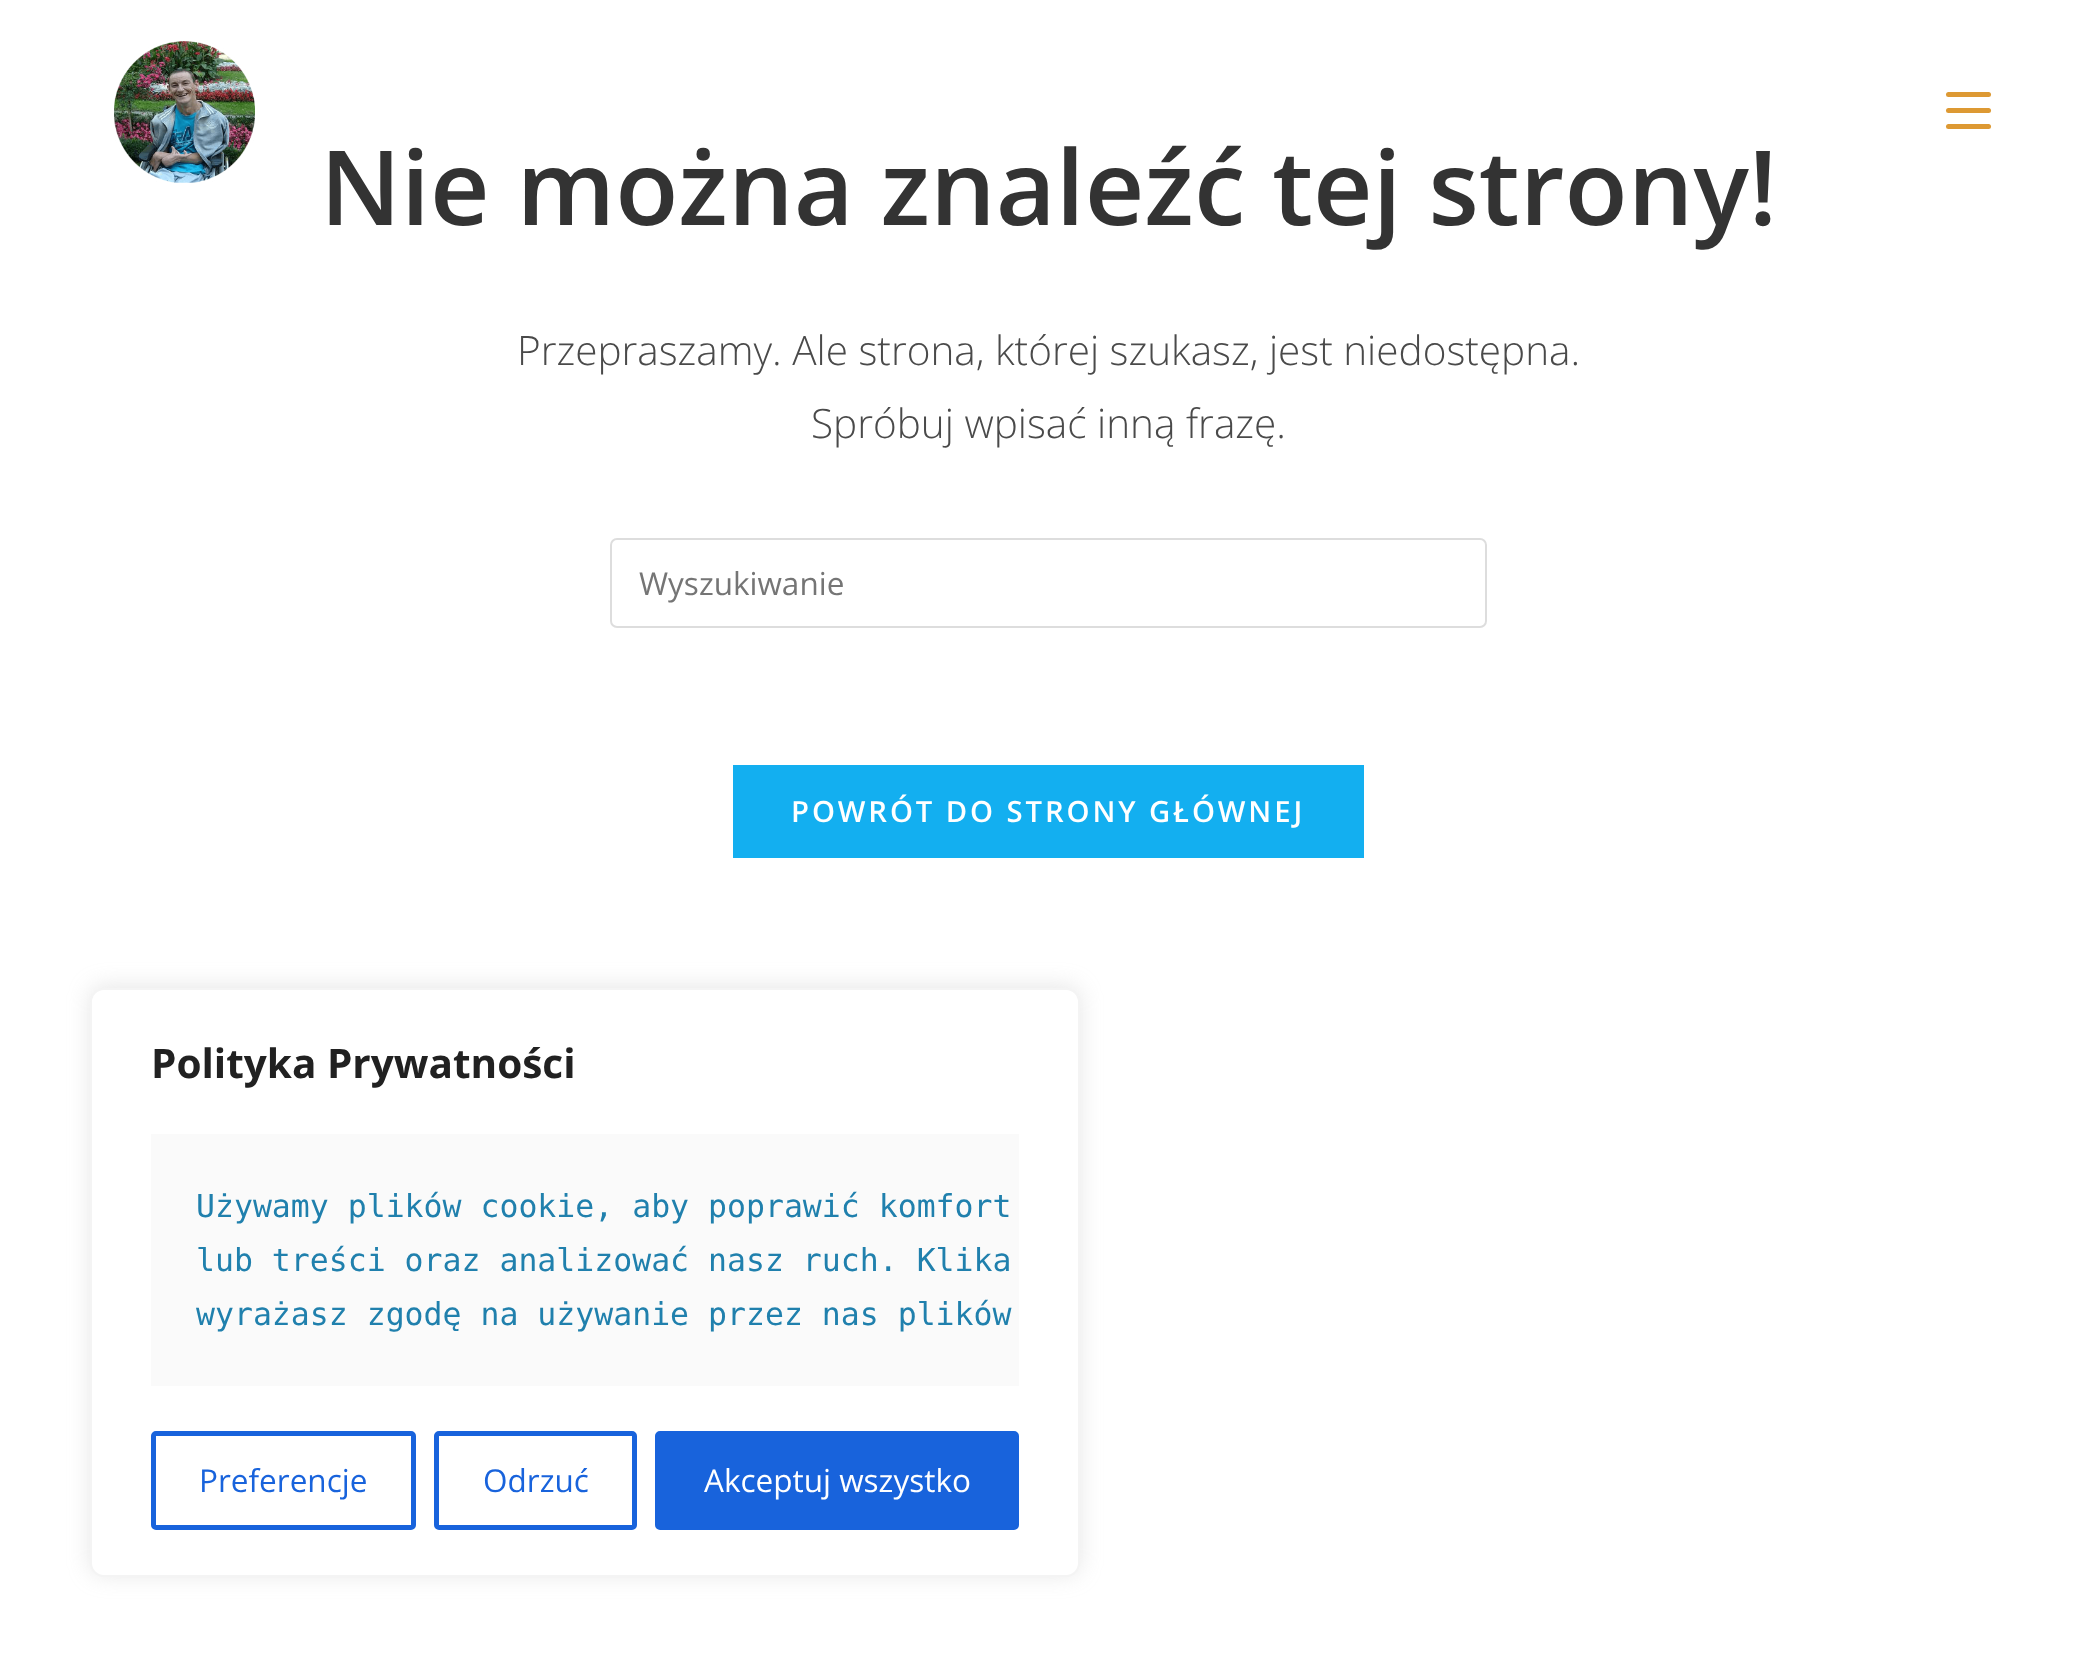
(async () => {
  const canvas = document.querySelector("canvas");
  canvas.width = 2095;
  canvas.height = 1667;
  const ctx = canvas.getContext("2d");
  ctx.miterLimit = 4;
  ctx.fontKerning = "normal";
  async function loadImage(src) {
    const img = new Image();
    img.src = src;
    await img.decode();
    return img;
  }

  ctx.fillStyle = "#ffffff";
  ctx.fillRect(0, 0, 2095, 1667);
  ctx.drawImage(await loadImage("img/1.png"), 114, 41, 141, 142);
  ctx.fillStyle = "#dd9933";
  ctx.beginPath();
  ctx.roundRect(1946, 108, 45, 5, 2.5);
  ctx.fill();
  ctx.beginPath();
  ctx.roundRect(1946, 92, 45, 5, 2.5);
  ctx.fill();
  ctx.beginPath();
  ctx.roundRect(1946, 124, 45, 5, 2.5);
  ctx.fill();
  ctx.beginPath();
  ctx.roundRect(611, 539, 875, 88, 6);
  ctx.strokeStyle = "#dddddd";
  ctx.lineWidth = 2;
  ctx.stroke();
  ctx.fillStyle = "#13aff0";
  ctx.fillRect(733, 765, 631, 93);
  ctx.fillStyle = "rgba(172, 171, 171, 0.3)";
  ctx.filter = "blur(11px)";
  ctx.beginPath();
  ctx.roundRect(90, 986, 990, 589, 14);
  ctx.fill();
  ctx.filter = "none";
  ctx.fillStyle = "#ffffff";
  ctx.beginPath();
  ctx.roundRect(91, 989, 988, 587, 13);
  ctx.fill();
  ctx.strokeStyle = "#f4f4f4";
  ctx.stroke();
  ctx.fillStyle = "#fafafa";
  ctx.fillRect(151, 1134, 868, 252);
  ctx.beginPath();
  ctx.roundRect(153.5, 1433.5, 260, 94, 2.5);
  ctx.strokeStyle = "#1863dc";
  ctx.lineWidth = 5;
  ctx.stroke();
  ctx.beginPath();
  ctx.roundRect(436.5, 1433.5, 198, 94, 2.5);
  ctx.stroke();
  ctx.fillStyle = "#1863dc";
  ctx.beginPath();
  ctx.roundRect(657.5, 1433.5, 359, 94, 2.5);
  ctx.fill();
  ctx.stroke();
  ctx.font = "600 103.5px Open Sans";
  ctx.fillStyle = "#333333";
  ctx.fillText("Nie można znaleźć tej strony!", 320, 225);
  ctx.font = "300 40.5px Open Sans";
  ctx.fillStyle = "#4a4a4a";
  ctx.fillText("Przepraszamy. Ale strona, której szukasz, jest niedostępna.", 517, 365);
  ctx.fillText("Spróbuj wpisać inną frazę.", 811, 438);
  ctx.font = "31.5px Open Sans";
  ctx.fillStyle = "#757575";
  ctx.fillText("Wyszukiwanie", 639, 595);
  ctx.letterSpacing = "2.9px";
  ctx.font = "600 29.25px Open Sans";
  ctx.fillStyle = "#ffffff";
  ctx.fillText("POWRÓT DO STRONY GŁÓWNEJ", 791, 822);
  ctx.letterSpacing = "0px";
  ctx.font = "bold 40.5px Open Sans";
  ctx.fillStyle = "#212121";
  ctx.fillText("Polityka Prywatności", 151, 1078);
  ctx.font = "31.5px DejaVu Sans Mono";
  ctx.fillStyle = "#2080ad";
  for (const [text, x, y] of [
    ["Używamy plików cookie, aby poprawić komfort", 196, 1217],
    ["lub treści oraz analizować nasz ruch. Klika", 196, 1271],
    ["wyrażasz zgodę na używanie przez nas plików", 196, 1325],
  ]) {
    ctx.fillText(text, x, y);
  }
  ctx.font = "31.5px Open Sans";
  ctx.fillStyle = "#1863dc";
  ctx.fillText("Preferencje", 199, 1492);
  ctx.fillText("Odrzuć", 483, 1492);
  ctx.fillStyle = "#ffffff";
  ctx.fillText("Akceptuj wszystko", 704, 1492);
})();
